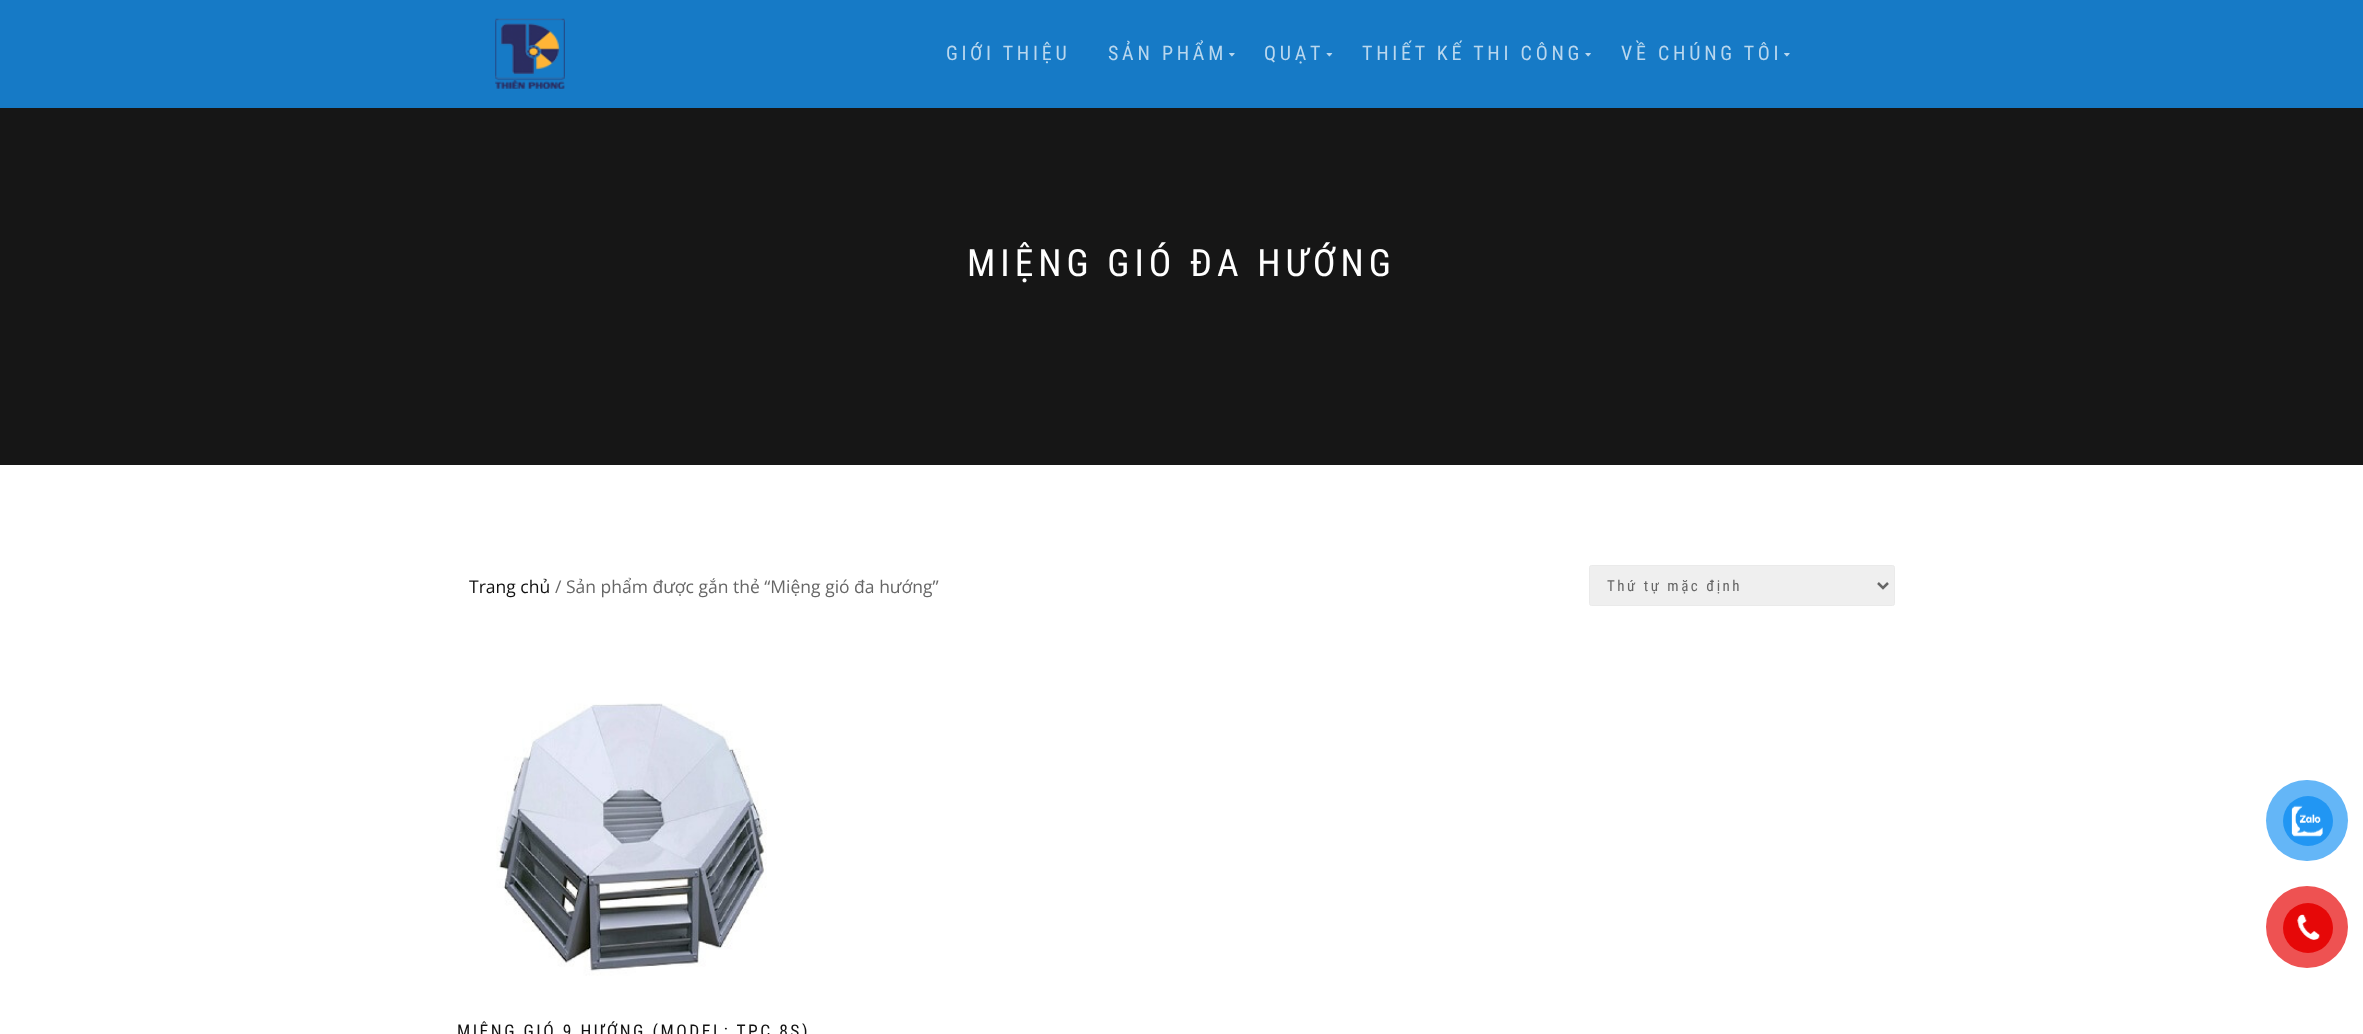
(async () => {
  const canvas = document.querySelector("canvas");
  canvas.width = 2363;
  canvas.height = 1034;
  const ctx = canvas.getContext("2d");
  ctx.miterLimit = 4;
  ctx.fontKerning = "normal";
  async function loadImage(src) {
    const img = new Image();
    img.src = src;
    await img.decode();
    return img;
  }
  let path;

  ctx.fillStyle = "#ffffff";
  ctx.fillRect(0, 0, 2363, 1034);
  ctx.fillStyle = "#167ac6";
  ctx.fillRect(0, 0, 2363, 108);
  ctx.drawImage(await loadImage("img/1.png"), 495, 18, 70, 71);
  ctx.drawImage(await loadImage("img/2.png"), 1229, 53, 6, 4);
  ctx.drawImage(await loadImage("img/3.png"), 1326, 53, 7, 4);
  ctx.drawImage(await loadImage("img/4.png"), 1585, 53, 6, 4);
  ctx.drawImage(await loadImage("img/2.png"), 1784, 53, 6, 4);
  ctx.fillStyle = "#161616";
  ctx.fillRect(0, 108, 2363, 357);
  ctx.fillStyle = "#efefef";
  ctx.beginPath();
  ctx.roundRect(1589.5, 565.5, 305, 40, 2);
  ctx.fill();
  ctx.strokeStyle = "#eaeaea";
  ctx.stroke();
  path = new Path2D("M1878 583L1883 588L1888 583");
  ctx.strokeStyle = "#666666";
  ctx.lineWidth = 2.5;
  ctx.stroke(path);
  ctx.drawImage(await loadImage("img/5.png"), 496, 703, 271, 273);
  ctx.fillStyle = "#64b6f7";
  ctx.beginPath();
  ctx.roundRect(2266, 780, 82, 81, 40.5);
  ctx.fill();
  ctx.fillStyle = "#2196f3";
  ctx.beginPath();
  ctx.arc(2308, 821, 25, 0, Math.PI * 2);
  ctx.fill();
  ctx.drawImage(await loadImage("img/6.png"), 2291, 805, 32, 32);
  ctx.fillStyle = "#ee5252";
  ctx.beginPath();
  ctx.arc(2307, 927, 41, 0, Math.PI * 2);
  ctx.fill();
  ctx.fillStyle = "#e60808";
  ctx.beginPath();
  ctx.arc(2308, 928, 25, 0, Math.PI * 2);
  ctx.fill();
  ctx.drawImage(await loadImage("img/7.png"), 2297, 914, 23, 26);
  ctx.letterSpacing = "3.75px";
  ctx.font = "20px Roboto Condensed";
  ctx.fillStyle = "#b9d7ee";
  for (const [text, x, y] of [
    ["GIỚI THIỆU", 946, 60],
    ["SẢN PHẨM", 1108, 60],
    ["QUẠT", 1264, 60],
    ["THIẾT KẾ THI CÔNG", 1362, 60],
    ["VỀ CHÚNG TÔI", 1621, 60],
  ]) {
    ctx.fillText(text, x, y);
  }
  ctx.letterSpacing = "5px";
  ctx.font = "37.5px Roboto Condensed";
  ctx.fillStyle = "#ffffff";
  ctx.fillText("MIỆNG GIÓ ĐA HƯỚNG", 967, 276);
  ctx.letterSpacing = "0px";
  ctx.font = "17.5px Open Sans";
  ctx.fillStyle = "#111111";
  ctx.fillText("Trang chủ", 469, 593);
  ctx.fillStyle = "#666666";
  ctx.fillText("/ Sản phẩm được gắn thẻ “Miệng gió đa hướng”", 555, 593);
  ctx.letterSpacing = "2.5px";
  ctx.font = "15px Roboto Condensed";
  ctx.fillText("Thứ tự mặc định", 1607, 591);
  ctx.font = "17.5px Roboto Condensed";
  ctx.fillStyle = "#111111";
  ctx.fillText("MIỆNG GIÓ 9 HƯỚNG (MODEL: TPC 8S)", 457, 1037);
})();
